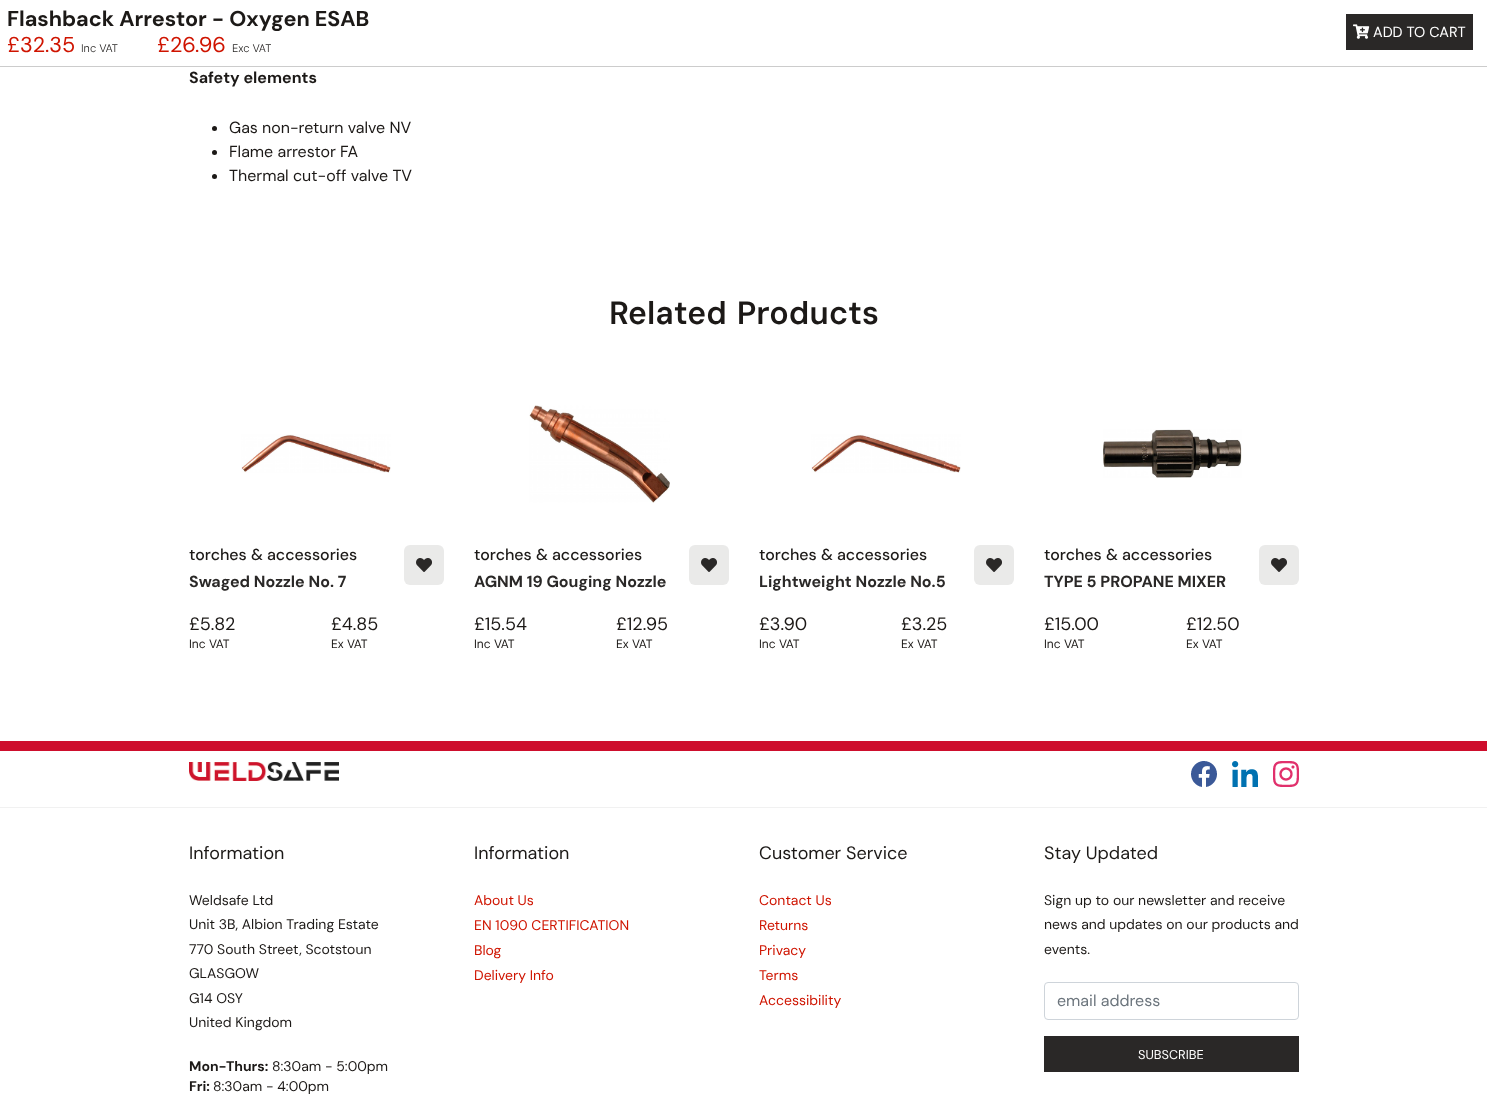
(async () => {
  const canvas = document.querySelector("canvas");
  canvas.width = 1487;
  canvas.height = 1094;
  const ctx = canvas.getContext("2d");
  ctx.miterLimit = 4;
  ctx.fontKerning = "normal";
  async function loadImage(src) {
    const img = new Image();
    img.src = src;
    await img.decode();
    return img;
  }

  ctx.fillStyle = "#ffffff";
  ctx.fillRect(0, 0, 1487, 1094);
  ctx.fillStyle = "#cccccc";
  ctx.fillRect(0, 66, 1487, 1);
  ctx.fillStyle = "#2a2827";
  ctx.fillRect(1346, 14, 127, 36);
  ctx.drawImage(await loadImage("img/1.png"), 1353, 24, 17, 15);
  ctx.fillStyle = "#1c1917";
  ctx.beginPath();
  ctx.arc(214.5, 128.5, 2.5, 0, Math.PI * 2);
  ctx.fill();
  ctx.beginPath();
  ctx.arc(214.5, 152.5, 2.5, 0, Math.PI * 2);
  ctx.fill();
  ctx.beginPath();
  ctx.arc(214.5, 176.5, 2.5, 0, Math.PI * 2);
  ctx.fill();
  ctx.drawImage(await loadImage("img/2.png"), 241, 434, 150, 39);
  ctx.fillStyle = "#eaeae9";
  ctx.beginPath();
  ctx.roundRect(404, 545, 40, 40, 6);
  ctx.fill();
  ctx.drawImage(await loadImage("img/3.png"), 416, 558, 16, 14);
  ctx.drawImage(await loadImage("img/4.png"), 529, 405, 141, 98);
  ctx.beginPath();
  ctx.roundRect(689, 545, 40, 40, 6);
  ctx.fill();
  ctx.drawImage(await loadImage("img/3.png"), 701, 558, 16, 14);
  ctx.drawImage(await loadImage("img/5.png"), 811, 434, 150, 39);
  ctx.beginPath();
  ctx.roundRect(974, 545, 40, 40, 6);
  ctx.fill();
  ctx.drawImage(await loadImage("img/3.png"), 986, 558, 16, 14);
  ctx.drawImage(await loadImage("img/6.png"), 1103, 429, 139, 49);
  ctx.beginPath();
  ctx.roundRect(1259, 545, 40, 40, 6);
  ctx.fill();
  ctx.drawImage(await loadImage("img/3.png"), 1271, 558, 16, 14);
  ctx.fillStyle = "#ce0e2d";
  ctx.fillRect(0, 741, 1487, 10);
  ctx.fillStyle = "#f1f1f1";
  ctx.fillRect(0, 807, 1487, 1);
  ctx.drawImage(await loadImage("img/7.png"), 189, 762, 150, 19);
  ctx.drawImage(await loadImage("img/8.png"), 1191, 761, 26, 26);
  ctx.drawImage(await loadImage("img/9.png"), 1232, 761, 26, 26);
  ctx.drawImage(await loadImage("img/10.png"), 1273, 761, 26, 26);
  ctx.beginPath();
  ctx.roundRect(1044.5, 982.5, 254, 37, 3.5);
  ctx.strokeStyle = "#ced4da";
  ctx.stroke();
  ctx.fillStyle = "#2a2827";
  ctx.fillRect(1044, 1036, 255, 36);
  ctx.font = "bold 21.6px 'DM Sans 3'";
  ctx.fillStyle = "#1c1917";
  ctx.fillText("Flashback Arrestor - Oxygen ESAB", 7, 26);
  ctx.font = "14.5px 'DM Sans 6'";
  ctx.fillStyle = "#ffffff";
  ctx.fillText("ADD TO CART", 1373, 37);
  ctx.font = "21.6px 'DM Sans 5'";
  ctx.fillStyle = "#cf1400";
  ctx.fillText("£32.35", 7, 52);
  ctx.font = "300 11px DM Sans";
  ctx.fillStyle = "#2a2827";
  ctx.fillText("Inc VAT", 81, 52);
  ctx.font = "21.6px 'DM Sans 5'";
  ctx.fillStyle = "#cf1400";
  ctx.fillText("£26.96", 157, 52);
  ctx.font = "300 11px DM Sans";
  ctx.fillStyle = "#2a2827";
  ctx.fillText("Exc VAT", 232, 52);
  ctx.font = "bold 16px DM Sans";
  ctx.fillStyle = "#1c1917";
  ctx.fillText("Safety elements", 189, 83);
  ctx.font = "16px DM Sans";
  for (const [text, x, y] of [
    ["Gas non-return valve NV", 229, 133],
    ["Flame arrestor FA", 229, 157],
    ["Thermal cut-off valve TV", 229, 181],
  ]) {
    ctx.fillText(text, x, y);
  }
  ctx.wordSpacing = "2px";
  ctx.font = "600 32px DM Sans";
  ctx.fillText("Related Products", 609, 324);
  ctx.wordSpacing = "0px";
  ctx.font = "500 16px DM Sans";
  ctx.fillText("torches & accessories", 189, 560);
  ctx.font = "bold 16px DM Sans";
  ctx.fillStyle = "#2a2827";
  ctx.fillText("Swaged Nozzle No. 7", 189, 587);
  ctx.font = "18px 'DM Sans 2'";
  ctx.fillStyle = "#1c1917";
  ctx.fillText("£5.82", 189, 630);
  ctx.font = "12px 'DM Sans 3'";
  ctx.fillText("Inc VAT", 189, 648);
  ctx.font = "18px 'DM Sans 2'";
  ctx.fillText("£4.85", 331, 630);
  ctx.font = "12px 'DM Sans 3'";
  ctx.fillText("Ex VAT", 331, 648);
  ctx.font = "500 16px DM Sans";
  ctx.fillText("torches & accessories", 474, 560);
  ctx.font = "bold 16px DM Sans";
  ctx.fillStyle = "#2a2827";
  ctx.fillText("AGNM 19 Gouging Nozzle", 474, 587);
  ctx.font = "18px 'DM Sans 2'";
  ctx.fillStyle = "#1c1917";
  ctx.fillText("£15.54", 474, 630);
  ctx.font = "12px 'DM Sans 3'";
  ctx.fillText("Inc VAT", 474, 648);
  ctx.font = "18px 'DM Sans 2'";
  ctx.fillText("£12.95", 616, 630);
  ctx.font = "12px 'DM Sans 3'";
  ctx.fillText("Ex VAT", 616, 648);
  ctx.font = "500 16px DM Sans";
  ctx.fillText("torches & accessories", 759, 560);
  ctx.font = "bold 16px DM Sans";
  ctx.fillStyle = "#2a2827";
  ctx.fillText("Lightweight Nozzle No.5", 759, 587);
  ctx.font = "18px 'DM Sans 2'";
  ctx.fillStyle = "#1c1917";
  ctx.fillText("£3.90", 759, 630);
  ctx.font = "12px 'DM Sans 3'";
  ctx.fillText("Inc VAT", 759, 648);
  ctx.font = "18px 'DM Sans 2'";
  ctx.fillText("£3.25", 901, 630);
  ctx.font = "12px 'DM Sans 3'";
  ctx.fillText("Ex VAT", 901, 648);
  ctx.font = "500 16px DM Sans";
  ctx.fillText("torches & accessories", 1044, 560);
  ctx.font = "bold 16px DM Sans";
  ctx.fillStyle = "#2a2827";
  ctx.fillText("TYPE 5 PROPANE MIXER", 1044, 587);
  ctx.font = "18px 'DM Sans 2'";
  ctx.fillStyle = "#1c1917";
  ctx.fillText("£15.00", 1044, 630);
  ctx.font = "12px 'DM Sans 3'";
  ctx.fillText("Inc VAT", 1044, 648);
  ctx.font = "18px 'DM Sans 2'";
  ctx.fillText("£12.50", 1186, 630);
  ctx.font = "12px 'DM Sans 3'";
  ctx.fillText("Ex VAT", 1186, 648);
  ctx.font = "18px 'DM Sans 2'";
  ctx.fillText("Information", 189, 859);
  ctx.font = "14px 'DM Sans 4'";
  for (const [text, x, y] of [
    ["Weldsafe Ltd", 189, 905],
    ["Unit 3B, Albion Trading Estate", 189, 929],
    ["770 South Street, Scotstoun", 189, 954],
    ["GLASGOW", 189, 978],
    ["G14 OSY", 189, 1003],
    ["United Kingdom", 189, 1027],
  ]) {
    ctx.fillText(text, x, y);
  }
  ctx.font = "bold 14px 'DM Sans 2'";
  ctx.fillText("Mon-Thurs:", 189, 1071);
  ctx.font = "14px 'DM Sans 4'";
  ctx.fillText("8:30am - 5:00pm", 272, 1071);
  ctx.font = "bold 14px 'DM Sans 2'";
  ctx.fillText("Fri:", 189, 1091);
  ctx.font = "14px 'DM Sans 4'";
  ctx.fillText("8:30am - 4:00pm", 213, 1091);
  ctx.font = "18px 'DM Sans 2'";
  ctx.fillText("Information", 474, 859);
  ctx.font = "14px 'DM Sans 4'";
  ctx.fillStyle = "#cf1400";
  for (const [text, x, y] of [
    ["About Us", 474, 905],
    ["EN 1090 CERTIFICATION", 474, 930],
    ["Blog", 474, 955],
    ["Delivery Info", 474, 980],
  ]) {
    ctx.fillText(text, x, y);
  }
  ctx.font = "18px 'DM Sans 2'";
  ctx.fillStyle = "#1c1917";
  ctx.fillText("Customer Service", 759, 859);
  ctx.font = "14px 'DM Sans 4'";
  ctx.fillStyle = "#cf1400";
  for (const [text, x, y] of [
    ["Contact Us", 759, 905],
    ["Returns", 759, 930],
    ["Privacy", 759, 955],
    ["Terms", 759, 980],
    ["Accessibility", 759, 1005],
  ]) {
    ctx.fillText(text, x, y);
  }
  ctx.font = "18px 'DM Sans 2'";
  ctx.fillStyle = "#1c1917";
  ctx.fillText("Stay Updated", 1044, 859);
  ctx.font = "14px 'DM Sans 4'";
  for (const [text, x, y] of [
    ["Sign up to our newsletter and receive", 1044, 905],
    ["news and updates on our products and", 1044, 929],
    ["events.", 1044, 954],
  ]) {
    ctx.fillText(text, x, y);
  }
  ctx.font = "16px DM Sans";
  ctx.fillStyle = "#6c757d";
  ctx.fillText("email address", 1057, 1006);
  ctx.font = "12.75px 'DM Sans 3'";
  ctx.fillStyle = "#ffffff";
  ctx.fillText("SUBSCRIBE", 1138, 1059);
})();
